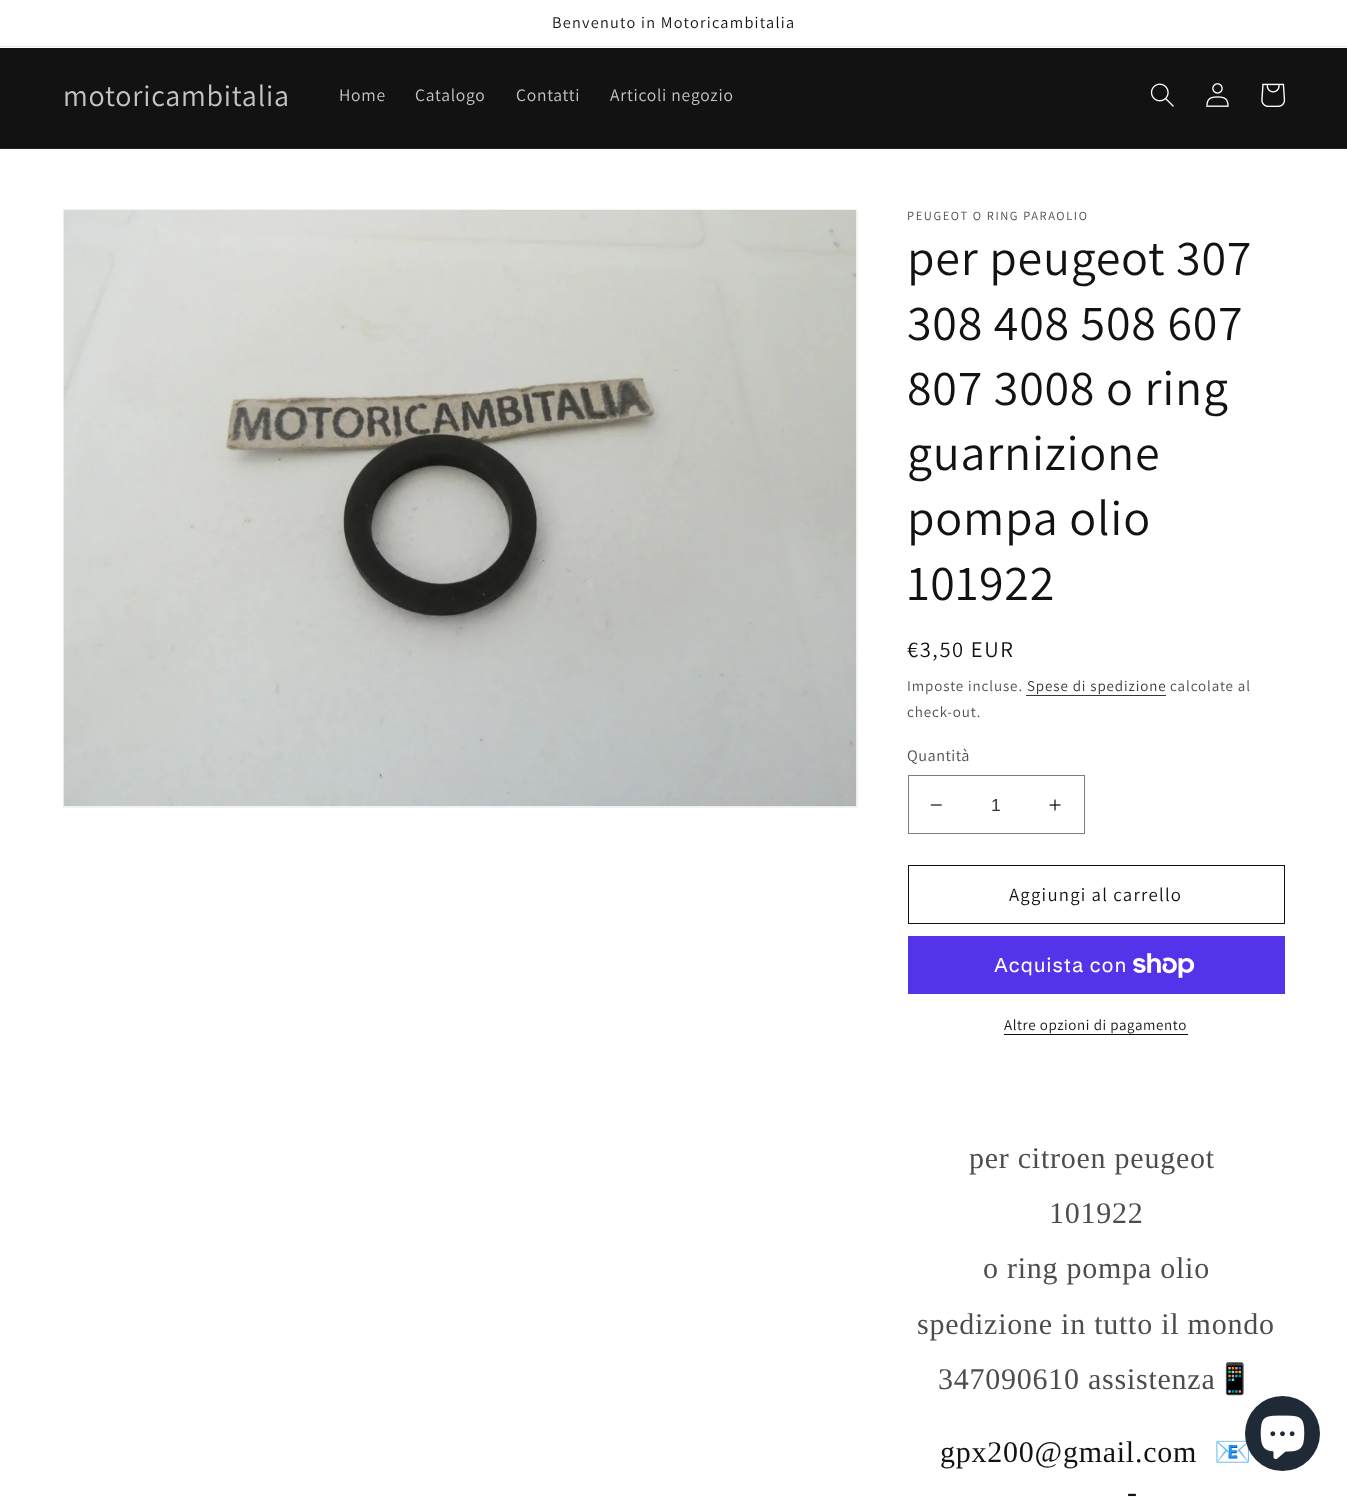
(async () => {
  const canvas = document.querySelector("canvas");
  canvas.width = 1347;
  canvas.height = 1497;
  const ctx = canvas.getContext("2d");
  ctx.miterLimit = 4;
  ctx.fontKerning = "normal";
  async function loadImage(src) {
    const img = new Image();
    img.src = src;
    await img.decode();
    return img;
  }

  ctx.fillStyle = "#ffffff";
  ctx.fillRect(0, 0, 1347, 1497);
  for (const [x, y, w, h, color] of [
    [0, 46, 1347, 1, "#ececec"],
    [0, 48, 1347, 100, "#121212"],
    [0, 148, 1347, 1, "#252525"],
  ]) {
    ctx.fillStyle = color;
    ctx.fillRect(x, y, w, h);
  }
  ctx.drawImage(await loadImage("img/1.png"), 1150, 83, 24, 24);
  ctx.drawImage(await loadImage("img/2.png"), 1206, 83, 23, 24);
  ctx.drawImage(await loadImage("img/3.png"), 1261, 83, 25, 24);
  ctx.strokeStyle = "#f3f3f3";
  ctx.strokeRect(63.5, 209.5, 794, 598);
  ctx.drawImage(await loadImage("img/4.png"), 63, 210, 794, 597);
  ctx.fillStyle = "#363636";
  ctx.fillRect(1026, 695, 140, 1);
  ctx.drawImage(await loadImage("img/5.png"), 930, 804, 12, 2);
  ctx.drawImage(await loadImage("img/6.png"), 1049, 799, 12, 12);
  ctx.strokeStyle = "#7d7d7d";
  ctx.strokeRect(908.5, 775.5, 176, 58);
  ctx.strokeStyle = "#121212";
  ctx.strokeRect(908.5, 865.5, 376, 58);
  ctx.fillStyle = "#5433eb";
  ctx.fillRect(908, 936, 377, 58);
  ctx.drawImage(await loadImage("img/7.png"), 1133, 953, 62, 25);
  ctx.fillStyle = "#121212";
  ctx.fillRect(1004, 1034, 184, 1);
  ctx.letterSpacing = "1.25px";
  ctx.font = "16.25px Assistant";
  ctx.fillText("Benvenuto in Motoricambitalia", 552, 28);
  ctx.letterSpacing = "0.75px";
  ctx.font = "30px Assistant";
  ctx.fillStyle = "#c4c4c4";
  ctx.fillText("motoricambitalia", 63, 106);
  ctx.font = "17.5px Assistant";
  for (const [text, x, y] of [
    ["Home", 339, 101],
    ["Catalogo", 415, 101],
    ["Contatti", 516, 101],
    ["Articoli negozio", 610, 101],
  ]) {
    ctx.fillText(text, x, y);
  }
  ctx.letterSpacing = "1.6px";
  ctx.font = "12.5px Assistant";
  ctx.fillStyle = "#4d4d4d";
  ctx.fillText("PEUGEOT O RING PARAOLIO", 907, 220);
  ctx.letterSpacing = "0.75px";
  ctx.font = "50px Assistant";
  ctx.fillStyle = "#121212";
  for (const [text, x, y] of [
    ["per peugeot 307", 907, 275],
    ["308 408 508 607", 907, 340],
    ["807 3008 o ring", 907, 405],
    ["guarnizione", 907, 470],
    ["pompa olio", 907, 535],
    ["101922", 907, 600],
  ]) {
    ctx.fillText(text, x, y);
  }
  ctx.letterSpacing = "1.6px";
  ctx.font = "22.5px Assistant";
  ctx.fillText("€3,50 EUR", 907, 657);
  ctx.letterSpacing = "0.9px";
  ctx.font = "15px Assistant";
  ctx.fillStyle = "#4d4d4d";
  ctx.fillText("Imposte incluse.", 907, 691);
  ctx.fillStyle = "#363636";
  ctx.fillText("Spese di spedizione", 1027, 691);
  ctx.fillStyle = "#4d4d4d";
  ctx.fillText("calcolate al", 1170, 691);
  ctx.fillText("check-out.", 907, 717);
  ctx.letterSpacing = "0.5px";
  ctx.font = "16.25px Assistant";
  ctx.fillText("Quantità", 907, 761);
  ctx.letterSpacing = "0px";
  ctx.font = "17.5px Liberation Sans";
  ctx.fillStyle = "#363636";
  ctx.fillText("1", 991, 811);
  ctx.letterSpacing = "1.25px";
  ctx.font = "18.75px Assistant";
  ctx.fillStyle = "#121212";
  ctx.fillText("Aggiungi al carrello", 1009, 901);
  ctx.letterSpacing = "0.75px";
  ctx.font = "20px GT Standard";
  ctx.fillStyle = "#ffffff";
  ctx.fillText("Acquista con", 994, 972);
  ctx.letterSpacing = "0.6px";
  ctx.font = "15px Assistant";
  ctx.fillStyle = "#121212";
  ctx.fillText("Altre opzioni di pagamento", 1004, 1030);
  ctx.letterSpacing = "0.75px";
  ctx.font = "30px Liberation Serif";
  ctx.fillStyle = "#4d4d4d";
  for (const [text, x, y] of [
    ["per citroen peugeot", 969, 1168],
    ["101922", 1049, 1223],
    ["o ring pompa olio", 983, 1278],
    ["spedizione in tutto il mondo", 917, 1334],
    ["347090610 assistenza", 938, 1389],
  ]) {
    ctx.fillText(text, x, y);
  }
  ctx.font = "30px Noto Color Emoji";
  ctx.fillText("📱", 1216, 1389);
  ctx.font = "30px Liberation Serif";
  ctx.fillStyle = "#121212";
  ctx.fillText("gpx200@gmail.com", 940, 1462);
  ctx.font = "30px Noto Color Emoji";
  ctx.fillText("📧", 1214, 1462);
  ctx.font = "30px Liberation Serif";
  ctx.fillText("-", 1127, 1502);
  ctx.fillStyle = "#202a36";
  ctx.beginPath();
  ctx.arc(1282.5, 1433.5, 37.5, 0, Math.PI * 2);
  ctx.fill();
  ctx.drawImage(await loadImage("img/8.png"), 1260, 1415, 45, 45);
})();
